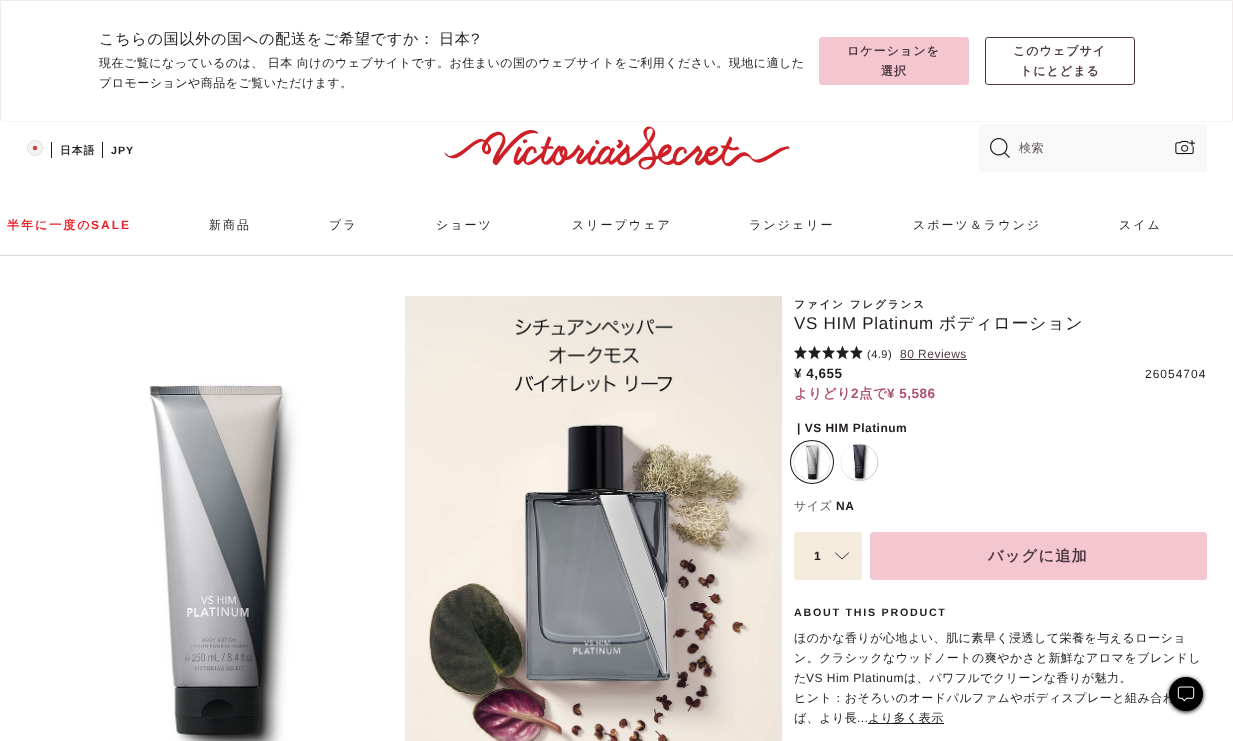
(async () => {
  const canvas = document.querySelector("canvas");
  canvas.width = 1233;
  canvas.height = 741;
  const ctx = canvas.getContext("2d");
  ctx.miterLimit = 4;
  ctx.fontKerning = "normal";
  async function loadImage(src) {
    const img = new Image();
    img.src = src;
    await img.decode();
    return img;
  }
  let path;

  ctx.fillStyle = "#ffffff";
  ctx.fillRect(0, 0, 1233, 741);
  ctx.fillStyle = "#f9e2e7";
  ctx.fillRect(0, 0, 1233, 2);
  ctx.fillStyle = "#ffffff";
  ctx.beginPath();
  ctx.roundRect(0, 0, 1233, 122, 2);
  ctx.fill();
  path = new Path2D("M1232 121L1231 121.5H2L1 121");
  ctx.strokeStyle = "#f5f5f6";
  ctx.stroke(path);
  path = new Path2D("M1 121L.5 120V2L1 1L2 .5H1231L1232 1L1232.5 2V120L1232 121");
  ctx.strokeStyle = "#efecea";
  ctx.stroke(path);
  ctx.fillStyle = "#f4c6cf";
  ctx.beginPath();
  ctx.roundRect(819.5, 37.5, 149, 47, 2.5);
  ctx.fill();
  ctx.strokeStyle = "#f4c6cf";
  ctx.stroke();
  ctx.beginPath();
  ctx.roundRect(985.5, 37.5, 149, 47, 2.5);
  ctx.strokeStyle = "#4e3844";
  ctx.stroke();
  ctx.beginPath();
  ctx.arc(35, 148, 7.5, 0, Math.PI * 2);
  ctx.strokeStyle = "#e0dad5";
  ctx.stroke();
  ctx.drawImage(await loadImage("img/1.png"), 28, 141, 14, 14);
  ctx.fillStyle = "#221d1d";
  ctx.fillRect(51, 142, 1, 16);
  ctx.fillRect(102, 142, 1, 16);
  ctx.drawImage(await loadImage("img/2.png"), 444, 126, 346, 44);
  ctx.fillStyle = "#f9f8f9";
  ctx.beginPath();
  ctx.roundRect(979, 124, 228, 48, 2);
  ctx.fill();
  ctx.drawImage(await loadImage("img/3.png"), 990, 138, 20, 20);
  ctx.drawImage(await loadImage("img/4.png"), 1175, 140, 20, 15);
  ctx.fillStyle = "#e0dad5";
  ctx.fillRect(0, 255, 1233, 1);
  ctx.drawImage(await loadImage("img/5.png"), 27, 296, 376, 445);
  ctx.drawImage(await loadImage("img/6.png"), 405, 296, 377, 445);
  ctx.drawImage(await loadImage("img/7.png"), 794, 346, 13, 13);
  ctx.drawImage(await loadImage("img/7.png"), 808, 346, 13, 13);
  ctx.drawImage(await loadImage("img/7.png"), 822, 346, 13, 13);
  ctx.drawImage(await loadImage("img/7.png"), 836, 346, 13, 13);
  ctx.drawImage(await loadImage("img/7.png"), 850, 346, 13, 13);
  ctx.drawImage(await loadImage("img/8.png"), 794, 346, 13, 13);
  ctx.drawImage(await loadImage("img/8.png"), 808, 346, 13, 13);
  ctx.drawImage(await loadImage("img/8.png"), 822, 346, 13, 13);
  ctx.drawImage(await loadImage("img/8.png"), 836, 346, 13, 13);
  ctx.drawImage(await loadImage("img/9.png"), 850, 346, 12, 13);
  ctx.fillStyle = "#4e3844";
  ctx.fillRect(900, 359, 67, 1);
  ctx.beginPath();
  ctx.arc(812, 462, 20, 0, Math.PI * 2);
  ctx.strokeStyle = "#221d1d";
  ctx.lineWidth = 4;
  ctx.stroke();
  ctx.beginPath();
  ctx.arc(812, 462, 19.5, 0, Math.PI * 2);
  ctx.strokeStyle = "#f9f8f9";
  ctx.lineWidth = 3;
  ctx.stroke();
  ctx.drawImage(await loadImage("img/10.png"), 794, 444, 36, 36);
  ctx.beginPath();
  ctx.arc(859.5, 462.5, 18.25, 0, Math.PI * 2);
  ctx.strokeStyle = "#958f8f";
  ctx.lineWidth = 0.5;
  ctx.stroke();
  ctx.drawImage(await loadImage("img/11.png"), 841, 444, 36, 36);
  ctx.fillStyle = "#f4ebdd";
  ctx.beginPath();
  ctx.roundRect(794, 532, 68, 48, 3);
  ctx.fill();
  path = new Path2D("M848.5 553L842 559L835.5 553");
  ctx.strokeStyle = "#000000";
  ctx.lineWidth = 0.8;
  ctx.lineCap = "round";
  ctx.stroke(path);
  ctx.fillStyle = "#f4c6cf";
  ctx.beginPath();
  ctx.roundRect(870.5, 532.5, 336, 47, 2.5);
  ctx.fill();
  ctx.strokeStyle = "#f4c6cf";
  ctx.lineWidth = 1;
  ctx.stroke();
  ctx.fillStyle = "#221d1d";
  ctx.fillRect(868, 723, 76, 1);
  ctx.fillStyle = "#000000";
  ctx.filter = "blur(2px)";
  ctx.beginPath();
  ctx.roundRect(1169, 678, 34, 34, 17);
  ctx.fill();
  ctx.filter = "none";
  ctx.letterSpacing = "0.6px";
  ctx.font = "500 15.2px WenQuanYi Zen Hei";
  ctx.fillStyle = "#221d1d";
  ctx.fillText("こちらの国以外の国への配送をご希望ですか：", 99, 44);
  ctx.fillText("日本", 439, 44);
  ctx.font = "15.2px Liberation Sans";
  ctx.fillText("?", 471, 44);
  ctx.letterSpacing = "0.48px";
  ctx.font = "500 12px WenQuanYi Zen Hei";
  ctx.fillText("現在ご覧になっているのは、 日本 向けのウェブサイトです。お住まいの国のウェブサイトをご利用ください。現地に適した", 99, 67);
  ctx.fillText("プロモーションや商品をご覧いただけます。", 99, 87);
  ctx.letterSpacing = "1px";
  ctx.font = "bold 12px WenQuanYi Zen Hei";
  ctx.fillStyle = "#4e3844";
  for (const [text, x, y] of [
    ["ロケーションを", 847, 55],
    ["選択", 881, 75],
    ["このウェブサイ", 1013, 55],
    ["トにとどまる", 1020, 75],
  ]) {
    ctx.fillText(text, x, y);
  }
  ctx.font = "bold 10.7px WenQuanYi Zen Hei";
  ctx.fillStyle = "#221d1d";
  ctx.fillText("日本語", 60, 154);
  ctx.font = "bold 10.7px Liberation Sans";
  ctx.fillText("JPY", 111, 154);
  ctx.letterSpacing = "0.48px";
  ctx.font = "500 12px WenQuanYi Zen Hei";
  ctx.fillStyle = "#605858";
  ctx.fillText("検索", 1019, 152);
  ctx.letterSpacing = "2px";
  ctx.font = "bold 12px WenQuanYi Zen Hei";
  ctx.fillStyle = "#eb1f28";
  ctx.fillText("半年に一度の", 7, 229);
  ctx.font = "bold 12px Liberation Sans";
  ctx.fillText("SALE", 91, 229);
  ctx.font = "500 12px WenQuanYi Zen Hei";
  ctx.fillStyle = "#221d1d";
  for (const [text, x, y] of [
    ["新商品", 209, 229],
    ["ブラ", 329, 229],
    ["ショーツ", 436, 229],
    ["スリープウェア", 572, 229],
    ["ランジェリー", 749, 229],
    ["スポーツ＆ラウンジ", 913, 229],
    ["スイム", 1119, 229],
  ]) {
    ctx.fillText(text, x, y);
  }
  ctx.letterSpacing = "1.75px";
  ctx.font = "bold 10.7px WenQuanYi Zen Hei";
  ctx.fillText("ファイン フレグランス", 794, 308);
  ctx.letterSpacing = "0.7px";
  ctx.font = "17px Liberation Sans";
  ctx.fillText("VS HIM Platinum", 794, 329);
  ctx.font = "500 17px WenQuanYi Zen Hei";
  ctx.fillText("ボディローション", 939, 329);
  ctx.letterSpacing = "0.5px";
  ctx.font = "11px Liberation Sans";
  ctx.fillText("(4.9)", 867, 358);
  ctx.letterSpacing = "0.48px";
  ctx.font = "12px Liberation Sans";
  ctx.fillStyle = "#4e3844";
  ctx.fillText("80 Reviews", 900, 358);
  ctx.letterSpacing = "0.5px";
  ctx.font = "bold 13.5px Liberation Sans";
  ctx.fillStyle = "#221d1d";
  ctx.fillText("¥ 4,655", 794, 378);
  ctx.font = "bold 13.5px WenQuanYi Zen Hei";
  ctx.fillStyle = "#af5071";
  ctx.fillText("よりどり", 794, 398);
  ctx.font = "bold 13.5px Liberation Sans";
  ctx.fillText("2", 851, 398);
  ctx.font = "bold 13.5px WenQuanYi Zen Hei";
  ctx.fillText("点で", 859, 398);
  ctx.font = "bold 13.5px Liberation Sans";
  ctx.fillText("¥ 5,586", 887, 398);
  ctx.letterSpacing = "1px";
  ctx.font = "12px Liberation Sans";
  ctx.fillStyle = "#221d1d";
  ctx.fillText("26054704", 1145, 378);
  ctx.letterSpacing = "0.48px";
  ctx.font = "bold 12px Liberation Sans";
  ctx.fillText("| VS HIM Platinum", 797, 432);
  ctx.font = "500 12px WenQuanYi Zen Hei";
  ctx.fillStyle = "#605858";
  ctx.fillText("サイズ", 794, 510);
  ctx.font = "bold 12px Liberation Sans";
  ctx.fillStyle = "#221d1d";
  ctx.fillText("NA", 836, 510);
  ctx.letterSpacing = "0px";
  ctx.fillText("1", 814, 560);
  ctx.letterSpacing = "1.25px";
  ctx.font = "bold 15.2px WenQuanYi Zen Hei";
  ctx.fillStyle = "#4e3844";
  ctx.fillText("バッグに追加", 988, 561);
  ctx.letterSpacing = "1.75px";
  ctx.font = "bold 10.7px Liberation Sans";
  ctx.fillStyle = "#221d1d";
  ctx.fillText("ABOUT THIS PRODUCT", 794, 616);
  ctx.letterSpacing = "0.48px";
  ctx.font = "500 12px WenQuanYi Zen Hei";
  for (const [text, x, y] of [
    ["ほのかな香りが心地よい、肌に素早く浸透して栄養を与えるローショ", 794, 642],
    ["ン。クラシックなウッドノートの爽やかさと新鮮なアロマをブレンドし", 794, 662],
    ["た", 794, 682],
  ]) {
    ctx.fillText(text, x, y);
  }
  ctx.font = "12px Liberation Sans";
  ctx.fillText("VS Him Platinum", 806, 682);
  ctx.font = "500 12px WenQuanYi Zen Hei";
  for (const [text, x, y] of [
    ["は、パワフルでクリーンな香りが魅力。", 904, 682],
    ["ヒント：おそろいのオードパルファムやボディスプレーと組み合わ", 794, 702],
    ["ば、より長", 794, 722],
  ]) {
    ctx.fillText(text, x, y);
  }
  ctx.font = "12px Liberation Sans";
  ctx.fillText("...", 857, 722);
  ctx.font = "500 12px WenQuanYi Zen Hei";
  ctx.fillText("より多く表示", 868, 722);
  ctx.fillStyle = "#000000";
  ctx.beginPath();
  ctx.arc(1186, 694, 17, 0, Math.PI * 2);
  ctx.fill();
  ctx.drawImage(await loadImage("img/12.png"), 1177, 686, 18, 16);
})();
